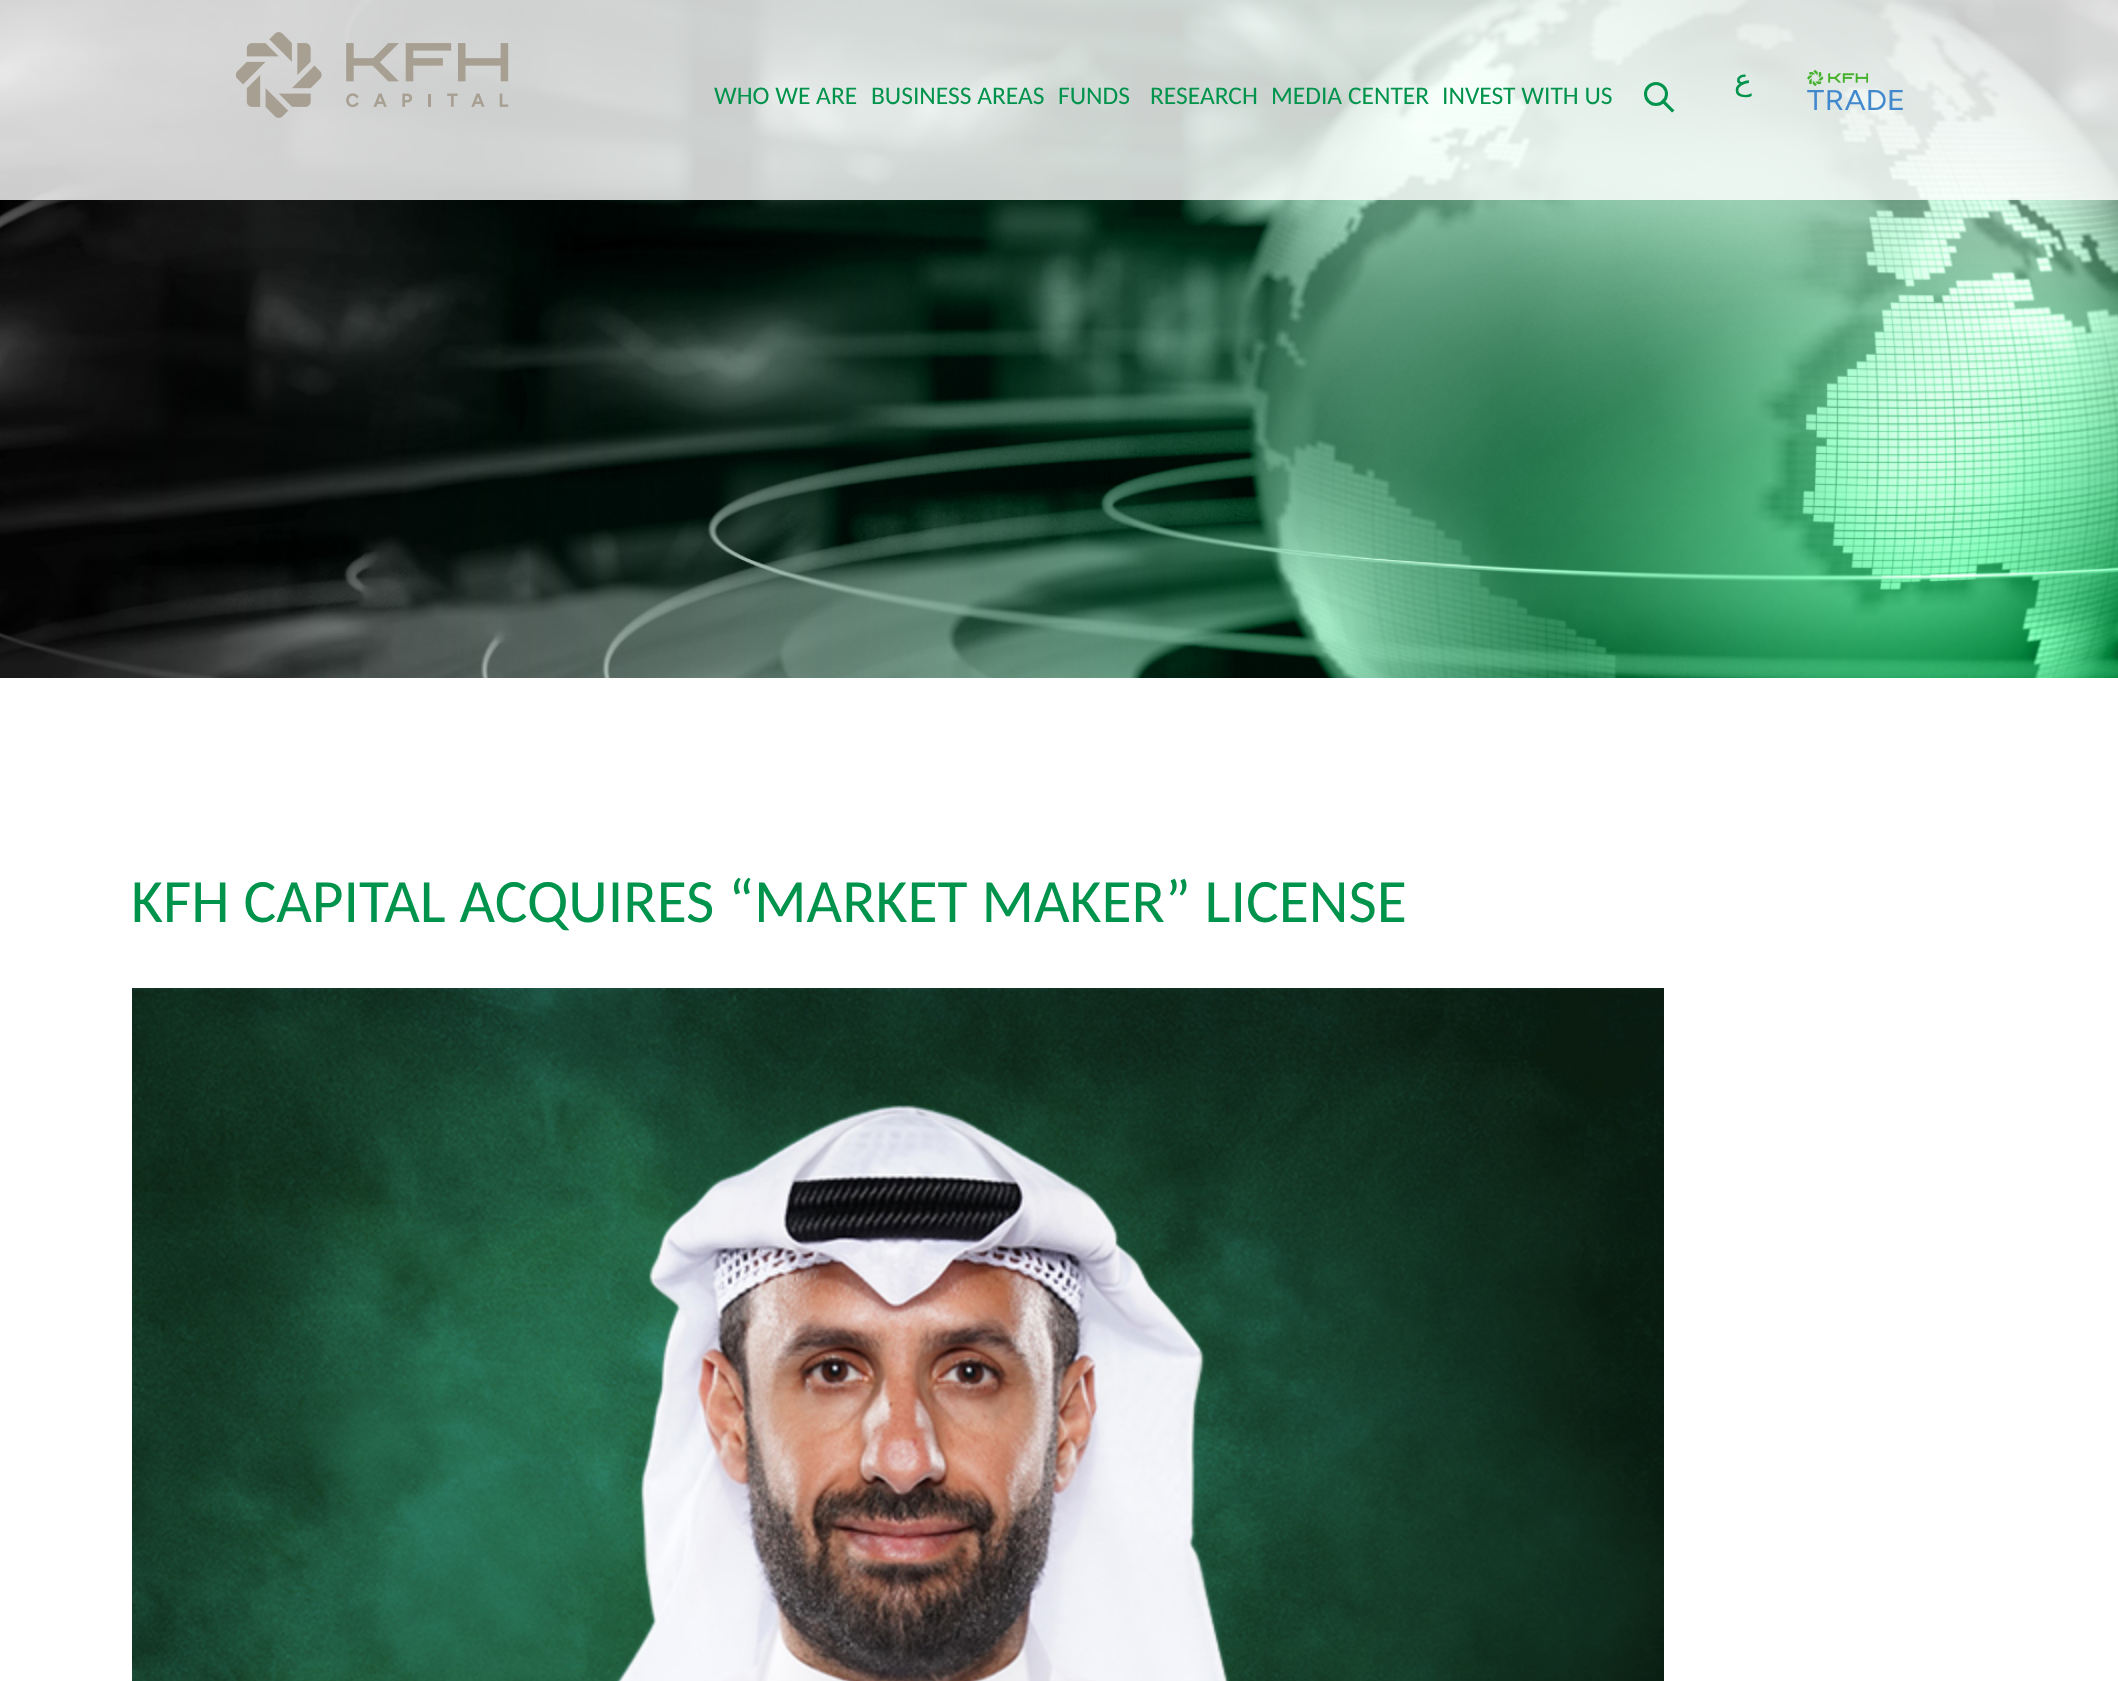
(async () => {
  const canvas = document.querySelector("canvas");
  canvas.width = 2118;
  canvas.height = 1681;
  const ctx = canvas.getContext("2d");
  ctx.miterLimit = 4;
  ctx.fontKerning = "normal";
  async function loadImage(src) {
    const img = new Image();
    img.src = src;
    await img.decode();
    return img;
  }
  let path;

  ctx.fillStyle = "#ffffff";
  ctx.fillRect(0, 0, 2118, 1681);
  ctx.drawImage(await loadImage("img/1.png"), 0, 0, 2118, 678);
  ctx.fillStyle = "rgba(255, 255, 255, 0.8)";
  ctx.fillRect(0, 0, 2118, 200);
  ctx.drawImage(await loadImage("img/2.png"), 235, 32, 274, 86);
  ctx.beginPath();
  ctx.arc(1656, 94, 10.5, 0, Math.PI * 2);
  ctx.strokeStyle = "#00934c";
  ctx.lineWidth = 3;
  ctx.stroke();
  ctx.fillStyle = "#00934c";
  path = new Path2D("M1663 99L1674.5 110.5L1672 112.5L1661 101.5Z");
  ctx.fill(path);
  ctx.drawImage(await loadImage("img/3.png"), 1807, 70, 96, 40);
  ctx.drawImage(await loadImage("img/4.png"), 132, 988, 1532, 693);
  ctx.font = "25.5px Carlito";
  for (const [text, x, y] of [
    ["WHO WE ARE", 714, 104],
    ["BUSINESS AREAS", 871, 104],
    ["FUNDS", 1058, 104],
    ["RESEARCH", 1150, 104],
    ["MEDIA CENTER", 1271, 104],
    ["INVEST WITH US", 1442, 104],
  ]) {
    ctx.fillText(text, x, y);
  }
  ctx.direction = "rtl";
  ctx.font = "30px DejaVu Sans";
  ctx.fillText("ع", 1752, 90);
  ctx.direction = "ltr";
  ctx.font = "61.5px Carlito";
  ctx.fillText("KFH CAPITAL ACQUIRES “MARKET MAKER” LICENSE", 131, 922);
})();
